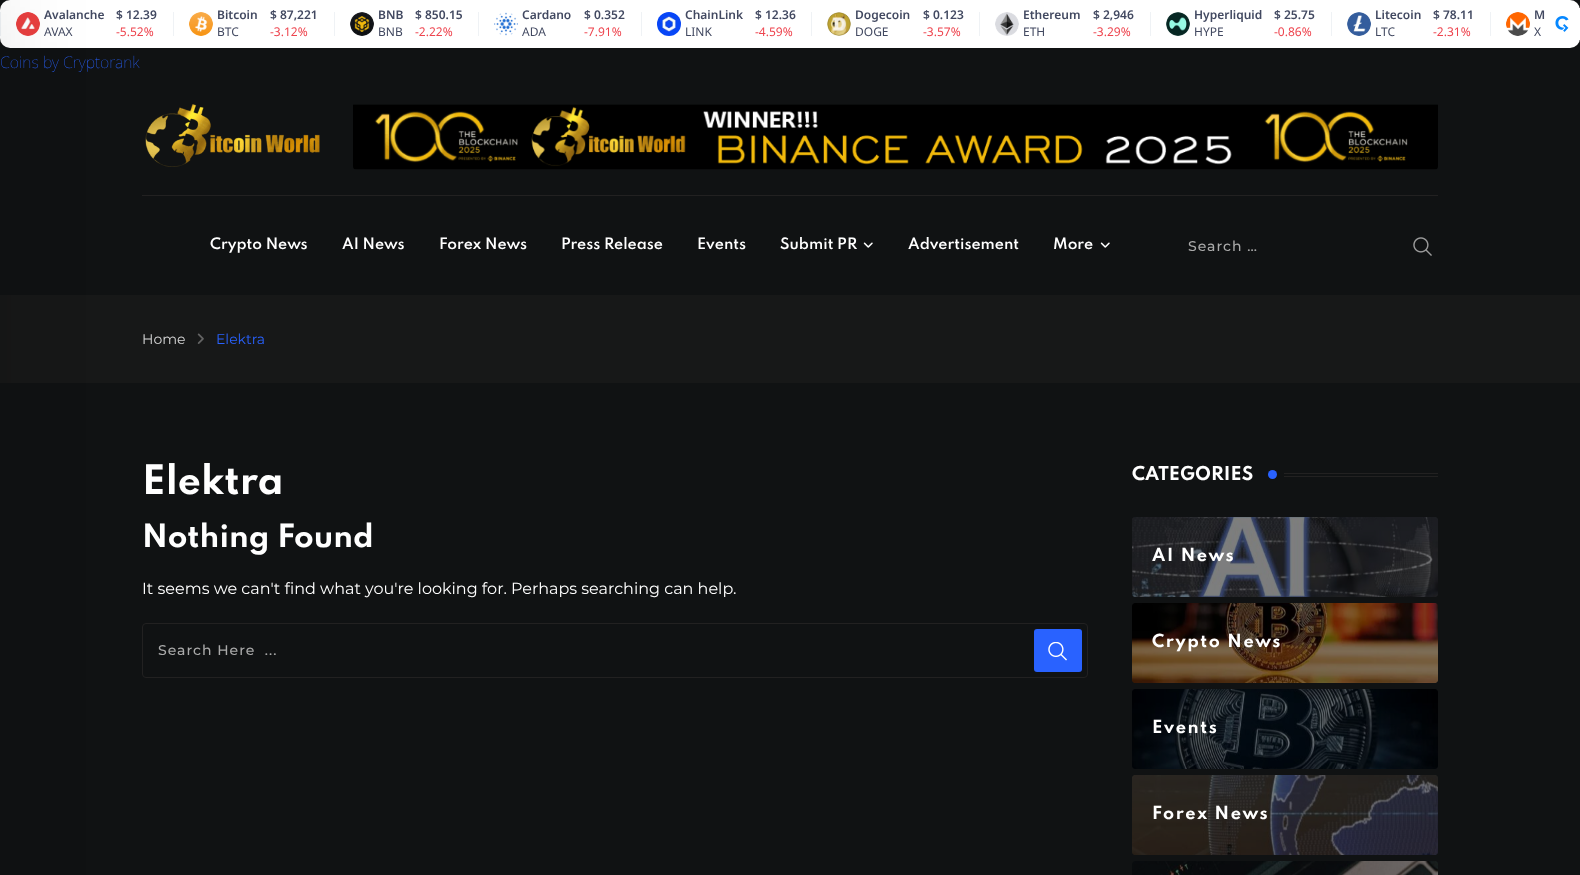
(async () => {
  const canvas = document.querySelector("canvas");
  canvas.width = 1580;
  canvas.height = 875;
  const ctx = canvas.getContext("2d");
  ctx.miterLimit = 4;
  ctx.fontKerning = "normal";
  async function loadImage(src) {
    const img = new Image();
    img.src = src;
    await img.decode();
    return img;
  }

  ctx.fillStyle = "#101213";
  ctx.fillRect(0, 0, 1580, 875);
  ctx.fillStyle = "#ffffff";
  ctx.beginPath();
  ctx.roundRect(0, 0, 1580, 48, 10);
  ctx.fill();
  ctx.fillStyle = "#eff2f5";
  ctx.fillRect(0, 12, 1, 24);
  ctx.drawImage(await loadImage("img/1.png"), 16, 12, 24, 24);
  ctx.fillRect(173, 12, 1, 24);
  ctx.drawImage(await loadImage("img/2.png"), 189, 12, 24, 24);
  ctx.fillRect(334, 12, 1, 24);
  ctx.drawImage(await loadImage("img/3.png"), 350, 12, 24, 24);
  ctx.fillRect(478, 12, 1, 24);
  ctx.drawImage(await loadImage("img/4.png"), 494, 12, 24, 24);
  ctx.fillRect(641, 12, 1, 24);
  ctx.drawImage(await loadImage("img/5.png"), 657, 12, 24, 24);
  ctx.fillRect(811, 12, 1, 24);
  ctx.drawImage(await loadImage("img/6.png"), 827, 12, 24, 24);
  ctx.fillRect(979, 12, 1, 24);
  ctx.drawImage(await loadImage("img/7.png"), 995, 12, 24, 24);
  ctx.fillRect(1150, 12, 1, 24);
  ctx.drawImage(await loadImage("img/8.png"), 1166, 12, 24, 24);
  ctx.fillRect(1331, 12, 1, 24);
  ctx.drawImage(await loadImage("img/9.png"), 1347, 12, 24, 24);
  ctx.fillRect(1490, 12, 1, 24);
  ctx.drawImage(await loadImage("img/10.png"), 1506, 12, 24, 24);
  ctx.fillStyle = "#ffffff";
  ctx.beginPath();
  ctx.roundRect(1544, 8, 36, 32, [12, 0, 0, 12]);
  ctx.fill();
  ctx.drawImage(await loadImage("img/11.png"), 1555, 16, 14, 16);
  ctx.fillStyle = "#222121";
  ctx.fillRect(142, 195, 1296, 1);
  ctx.drawImage(await loadImage("img/12.png"), 145, 104, 175, 63);
  ctx.drawImage(await loadImage("img/13.png"), 353, 104, 1085, 66);
  ctx.fillStyle = "#171818";
  ctx.fillRect(0, 295, 1580, 88);
  ctx.fillStyle = "rgba(0, 0, 0, 0.1)";
  ctx.filter = "blur(45px)";
  ctx.beginPath();
  ctx.rect(-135, 0, 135, 875);
  ctx.fill();
  ctx.filter = "none";
  ctx.drawImage(await loadImage("img/14.png"), 863, 242, 10, 6);
  ctx.drawImage(await loadImage("img/14.png"), 1100, 242, 10, 6);
  ctx.drawImage(await loadImage("img/15.png"), 1413, 237, 19, 19);
  ctx.drawImage(await loadImage("img/16.png"), 197, 333, 7, 11);
  ctx.beginPath();
  ctx.roundRect(142.5, 623.5, 945, 54, 3.5);
  ctx.strokeStyle = "#222121";
  ctx.stroke();
  ctx.fillStyle = "#2962ff";
  ctx.beginPath();
  ctx.roundRect(1034, 629, 48, 43, 3);
  ctx.fill();
  ctx.drawImage(await loadImage("img/17.png"), 1048, 642, 19, 19);
  ctx.beginPath();
  ctx.arc(1272.5, 474.5, 4.5, 0, Math.PI * 2);
  ctx.fill();
  ctx.fillStyle = "#222121";
  ctx.fillRect(1284, 473, 154, 1);
  ctx.fillRect(1284, 476, 154, 1);
  ctx.drawImage(await loadImage("img/18.png"), 1132, 517, 306, 80);
  ctx.fillStyle = "rgba(0, 0, 0, 0.5)";
  ctx.beginPath();
  ctx.roundRect(1132, 517, 306, 80, 4);
  ctx.fill();
  ctx.drawImage(await loadImage("img/19.png"), 1132, 603, 306, 80);
  ctx.beginPath();
  ctx.roundRect(1132, 603, 306, 80, 4);
  ctx.fill();
  ctx.drawImage(await loadImage("img/20.png"), 1132, 689, 306, 80);
  ctx.beginPath();
  ctx.roundRect(1132, 689, 306, 80, 4);
  ctx.fill();
  ctx.drawImage(await loadImage("img/21.png"), 1132, 775, 306, 80);
  ctx.beginPath();
  ctx.roundRect(1132, 775, 306, 80, 4);
  ctx.fill();
  ctx.drawImage(await loadImage("img/22.png"), 1132, 861, 306, 14);
  ctx.beginPath();
  ctx.roundRect(1132, 861, 306, 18, 4);
  ctx.fill();
  ctx.font = "600 12px Noto Sans";
  ctx.fillStyle = "#424961";
  ctx.fillText("Avalanche", 44, 19);
  ctx.font = "12px Noto Sans";
  ctx.fillText("AVAX", 44, 36);
  ctx.font = "600 12px Noto Sans";
  ctx.fillText("$ 12.39", 116, 19);
  ctx.font = "12px Noto Sans";
  ctx.fillStyle = "#ee444e";
  ctx.fillText("-5.52%", 116, 36);
  ctx.font = "600 12px Noto Sans";
  ctx.fillStyle = "#424961";
  ctx.fillText("Bitcoin", 217, 19);
  ctx.font = "12px Noto Sans";
  ctx.fillText("BTC", 217, 36);
  ctx.font = "600 12px Noto Sans";
  ctx.fillText("$ 87,221", 270, 19);
  ctx.font = "12px Noto Sans";
  ctx.fillStyle = "#ee444e";
  ctx.fillText("-3.12%", 270, 36);
  ctx.font = "600 12px Noto Sans";
  ctx.fillStyle = "#424961";
  ctx.fillText("BNB", 378, 19);
  ctx.font = "12px Noto Sans";
  ctx.fillText("BNB", 378, 36);
  ctx.font = "600 12px Noto Sans";
  ctx.fillText("$ 850.15", 415, 19);
  ctx.font = "12px Noto Sans";
  ctx.fillStyle = "#ee444e";
  ctx.fillText("-2.22%", 415, 36);
  ctx.font = "600 12px Noto Sans";
  ctx.fillStyle = "#424961";
  ctx.fillText("Cardano", 522, 19);
  ctx.font = "12px Noto Sans";
  ctx.fillText("ADA", 522, 36);
  ctx.font = "600 12px Noto Sans";
  ctx.fillText("$ 0.352", 584, 19);
  ctx.font = "12px Noto Sans";
  ctx.fillStyle = "#ee444e";
  ctx.fillText("-7.91%", 584, 36);
  ctx.font = "600 12px Noto Sans";
  ctx.fillStyle = "#424961";
  ctx.fillText("ChainLink", 685, 19);
  ctx.font = "12px Noto Sans";
  ctx.fillText("LINK", 685, 36);
  ctx.font = "600 12px Noto Sans";
  ctx.fillText("$ 12.36", 755, 19);
  ctx.font = "12px Noto Sans";
  ctx.fillStyle = "#ee444e";
  ctx.fillText("-4.59%", 755, 36);
  ctx.font = "600 12px Noto Sans";
  ctx.fillStyle = "#424961";
  ctx.fillText("Dogecoin", 855, 19);
  ctx.font = "12px Noto Sans";
  ctx.fillText("DOGE", 855, 36);
  ctx.font = "600 12px Noto Sans";
  ctx.fillText("$ 0.123", 923, 19);
  ctx.font = "12px Noto Sans";
  ctx.fillStyle = "#ee444e";
  ctx.fillText("-3.57%", 923, 36);
  ctx.font = "600 12px Noto Sans";
  ctx.fillStyle = "#424961";
  ctx.fillText("Ethereum", 1023, 19);
  ctx.font = "12px Noto Sans";
  ctx.fillText("ETH", 1023, 36);
  ctx.font = "600 12px Noto Sans";
  ctx.fillText("$ 2,946", 1093, 19);
  ctx.font = "12px Noto Sans";
  ctx.fillStyle = "#ee444e";
  ctx.fillText("-3.29%", 1093, 36);
  ctx.font = "600 12px Noto Sans";
  ctx.fillStyle = "#424961";
  ctx.fillText("Hyperliquid", 1194, 19);
  ctx.font = "12px Noto Sans";
  ctx.fillText("HYPE", 1194, 36);
  ctx.font = "600 12px Noto Sans";
  ctx.fillText("$ 25.75", 1274, 19);
  ctx.font = "12px Noto Sans";
  ctx.fillStyle = "#ee444e";
  ctx.fillText("-0.86%", 1274, 36);
  ctx.font = "600 12px Noto Sans";
  ctx.fillStyle = "#424961";
  ctx.fillText("Litecoin", 1375, 19);
  ctx.font = "12px Noto Sans";
  ctx.fillText("LTC", 1375, 36);
  ctx.font = "600 12px Noto Sans";
  ctx.fillText("$ 78.11", 1433, 19);
  ctx.font = "12px Noto Sans";
  ctx.fillStyle = "#ee444e";
  ctx.fillText("-2.31%", 1433, 36);
  ctx.font = "600 12px Noto Sans";
  ctx.fillStyle = "#424961";
  ctx.fillText("M", 1534, 19);
  ctx.font = "12px Noto Sans";
  ctx.fillText("X", 1534, 36);
  ctx.font = "100 16px Noto Sans";
  ctx.fillStyle = "#2962ff";
  ctx.fillText("Coins by Cryptorank", 0, 68);
  ctx.font = "600 14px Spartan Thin";
  ctx.fillStyle = "#ffffff";
  for (const [text, x, y] of [
    ["Crypto News", 210, 249],
    ["AI News", 342, 249],
    ["Forex News", 439, 249],
    ["Press Release", 561, 249],
    ["Events", 697, 249],
    ["Submit PR", 780, 249],
    ["Advertisement", 908, 249],
    ["More", 1053, 249],
  ]) {
    ctx.fillText(text, x, y);
  }
  ctx.letterSpacing = "1px";
  ctx.font = "500 14px Montserrat";
  ctx.fillStyle = "#aaaaaa";
  ctx.fillText("Search …", 1188, 251);
  ctx.letterSpacing = "0px";
  ctx.font = "14px Montserrat";
  ctx.fillStyle = "#d7d7d7";
  ctx.fillText("Home", 142, 344);
  ctx.fillStyle = "#2962ff";
  ctx.fillText("Elektra", 216, 344);
  ctx.font = "bold 36px Spartan Thin";
  ctx.fillStyle = "#ffffff";
  ctx.fillText("Elektra", 142, 494);
  ctx.font = "bold 28.5px Spartan Thin";
  ctx.fillText("Nothing Found", 142, 547);
  ctx.font = "16px Montserrat";
  ctx.fillText("It seems we can't find what you're looking for. Perhaps searching can help.", 142, 594);
  ctx.letterSpacing = "1px";
  ctx.font = "500 14px Montserrat";
  ctx.fillStyle = "#aaaaaa";
  ctx.fillText("Search Here  ...", 158, 655);
  ctx.letterSpacing = "0px";
  ctx.font = "bold 17px Spartan Thin";
  ctx.fillStyle = "#ffffff";
  ctx.fillText("CATEGORIES", 1132, 480);
  ctx.letterSpacing = "1.6px";
  ctx.font = "bold 16px Spartan Thin";
  for (const [text, x, y] of [
    ["AI News", 1152, 561],
    ["Crypto News", 1152, 647],
    ["Events", 1152, 733],
    ["Forex News", 1152, 819],
  ]) {
    ctx.fillText(text, x, y);
  }
})();
